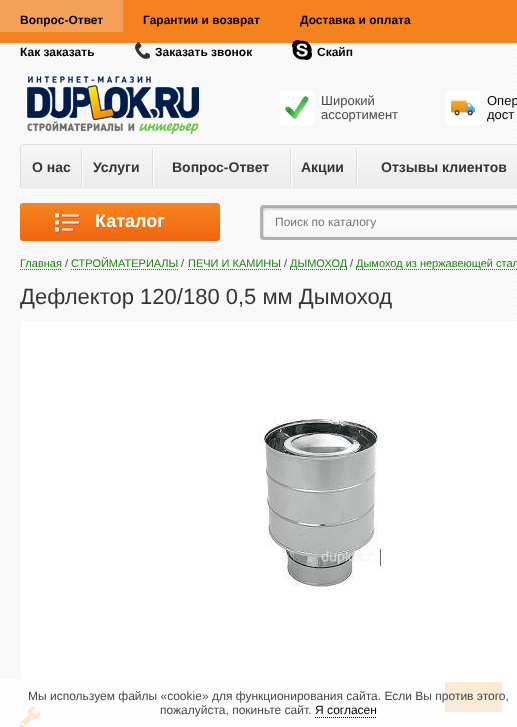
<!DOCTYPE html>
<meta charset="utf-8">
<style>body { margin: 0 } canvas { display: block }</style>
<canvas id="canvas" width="517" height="727"></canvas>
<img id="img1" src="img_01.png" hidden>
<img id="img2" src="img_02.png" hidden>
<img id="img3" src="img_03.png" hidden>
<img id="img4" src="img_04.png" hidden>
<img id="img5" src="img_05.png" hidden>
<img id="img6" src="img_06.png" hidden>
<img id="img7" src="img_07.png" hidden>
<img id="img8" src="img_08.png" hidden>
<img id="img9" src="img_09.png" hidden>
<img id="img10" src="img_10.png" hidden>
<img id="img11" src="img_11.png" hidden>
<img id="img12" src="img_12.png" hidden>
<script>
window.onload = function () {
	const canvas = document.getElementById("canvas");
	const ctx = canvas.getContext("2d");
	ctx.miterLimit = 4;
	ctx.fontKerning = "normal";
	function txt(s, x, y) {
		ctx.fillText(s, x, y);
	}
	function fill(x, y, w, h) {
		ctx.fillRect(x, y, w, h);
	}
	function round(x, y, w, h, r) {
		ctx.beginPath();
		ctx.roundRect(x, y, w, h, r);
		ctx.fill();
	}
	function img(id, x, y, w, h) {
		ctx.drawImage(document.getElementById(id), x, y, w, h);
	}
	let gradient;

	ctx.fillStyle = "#FFFFFF";
	fill(0, 0, 517, 727);
	img("img1", 0, 43, 517, 684);
	ctx.fillStyle = "#F6821F";
	fill(0, 0, 517, 43);
	ctx.fillStyle = "#F3A059";
	fill(0, 0, 123, 32);
	img("img2", 135, 42, 15, 17);
	img("img3", 292, 40, 20, 20);
	img("img4", 27, 76, 172, 58);
	ctx.fillStyle = "#FFFFFF";
	fill(280, 91, 34, 34);
	img("img5", 285, 96, 24, 23);
	fill(446, 91, 34, 34);
	img("img6", 451, 100, 24, 16);
	img("img7", 20, 144, 497, 46);
	ctx.beginPath();
	ctx.moveTo(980.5, 145.5);
	ctx.lineTo(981.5, 147.5);
	ctx.lineTo(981.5, 186.5);
	ctx.lineTo(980, 188.5);
	ctx.lineTo(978, 189.5);
	ctx.lineTo(24, 189.5);
	ctx.lineTo(21.5, 188.5);
	ctx.strokeStyle = "#FFFFFF";
	ctx.stroke();
	ctx.beginPath();
	ctx.moveTo(21.5, 188.5);
	ctx.lineTo(20.5, 186.5);
	ctx.lineTo(20.5, 147.5);
	ctx.lineTo(22, 145.5);
	ctx.lineTo(24, 144.5);
	ctx.lineTo(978, 144.5);
	ctx.lineTo(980.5, 145.5);
	ctx.strokeStyle = "#DDDDDD";
	ctx.stroke();
	img("img8", 81, 148, 2, 39);
	img("img8", 152, 148, 2, 39);
	img("img8", 290, 148, 2, 39);
	img("img8", 356, 148, 2, 39);
	gradient = ctx.createLinearGradient(120, 203, 120, 241);
	gradient.addColorStop(0, "#F5851E");
	gradient.addColorStop(1, "#F16411");
	ctx.fillStyle = gradient;
	round(20, 203, 200, 38, 3);
	img("img9", 55, 213, 25, 20);
	img("img10", 260, 205, 257, 35);
	ctx.beginPath();
	ctx.moveTo(20, 269.5);
	ctx.lineTo(62, 269.5);
	ctx.strokeStyle = "#1D7D14";
	ctx.setLineDash([1, 1]);
	ctx.stroke();
	ctx.beginPath();
	ctx.moveTo(71, 269.5);
	ctx.lineTo(178, 269.5);
	ctx.stroke();
	ctx.beginPath();
	ctx.moveTo(188, 269.5);
	ctx.lineTo(281, 269.5);
	ctx.stroke();
	ctx.beginPath();
	ctx.moveTo(290, 269.5);
	ctx.lineTo(347, 269.5);
	ctx.stroke();
	ctx.beginPath();
	ctx.moveTo(356, 269.5);
	ctx.lineTo(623, 269.5);
	ctx.stroke();
	ctx.fillStyle = "#FFFFFF";
	fill(21, 321, 496, 361);
	img("img11", 258, 419, 126, 168);
	img("img12", 20, 707, 20, 20);
	ctx.fillStyle = "rgba(219, 132, 4, 0.8)";
	round(445, 682, 57, 30, 1);
	ctx.fillStyle = "rgba(255, 255, 255, 0.8)";
	fill(0, 679, 517, 48);
	ctx.beginPath();
	ctx.moveTo(315, 717.5);
	ctx.lineTo(377, 717.5);
	ctx.strokeStyle = "#000000";
	ctx.stroke();
	ctx.font = "bold 12px Liberation Sans";
	ctx.fillStyle = "#000000";
	txt("Вопрос-Ответ", 20, 24);
	txt("Гарантии и возврат", 143, 24);
	txt("Доставка и оплата", 300, 24);
	txt("Как заказать", 20, 56);
	txt("Заказать звонок", 155, 56);
	txt("Скайп", 317, 56);
	ctx.font = "13px Liberation Sans";
	ctx.fillStyle = "#49474E";
	txt("Широкий", 321, 105);
	txt("ассортимент", 321, 119);
	ctx.fillStyle = "#000000";
	txt("Опер", 487, 105);
	txt("дост", 487, 119);
	ctx.font = "bold 14px Liberation Sans";
	ctx.fillStyle = "#363439";
	txt("О нас", 32, 172);
	txt("Услуги", 93, 172);
	txt("Вопрос-Ответ", 172, 172);
	txt("Акции", 301, 172);
	txt("Отзывы клиентов", 381, 172);
	ctx.font = "bold 18px Liberation Sans";
	ctx.fillStyle = "#FFFFFF";
	txt("Каталог", 95, 227);
	ctx.font = "12px Liberation Sans";
	ctx.fillStyle = "#757575";
	txt("Поиск по каталогу", 275, 226);
	ctx.font = "11px Liberation Sans";
	ctx.fillStyle = "#1D7D14";
	txt("Главная", 20, 267);
	ctx.fillStyle = "#49474E";
	txt("/", 65, 267);
	ctx.fillStyle = "#1D7D14";
	txt("СТРОЙМАТЕРИАЛЫ", 71, 267);
	ctx.fillStyle = "#49474E";
	txt("/", 181, 267);
	ctx.fillStyle = "#1D7D14";
	txt("ПЕЧИ И КАМИНЫ", 188, 267);
	ctx.fillStyle = "#49474E";
	txt("/", 284, 267);
	ctx.fillStyle = "#1D7D14";
	txt("ДЫМОХОД", 290, 267);
	ctx.fillStyle = "#49474E";
	txt("/", 350, 267);
	ctx.fillStyle = "#1D7D14";
	txt("Дымоход из нержавеющей стал", 356, 267);
	ctx.font = "22px Liberation Sans";
	ctx.fillStyle = "#363439";
	txt("Дефлектор 120/180 0,5 мм Дымоход", 20, 304);
	ctx.font = "12px Liberation Sans";
	ctx.fillStyle = "#49474E";
	txt("Мы используем файлы «cookie» для функционирования сайта. Если Вы против этого,", 28, 700);
	txt("пожалуйста, покиньте сайт.", 160, 714);
	ctx.fillStyle = "#000000";
	txt("Я согласен", 315, 714);
};
</script>
